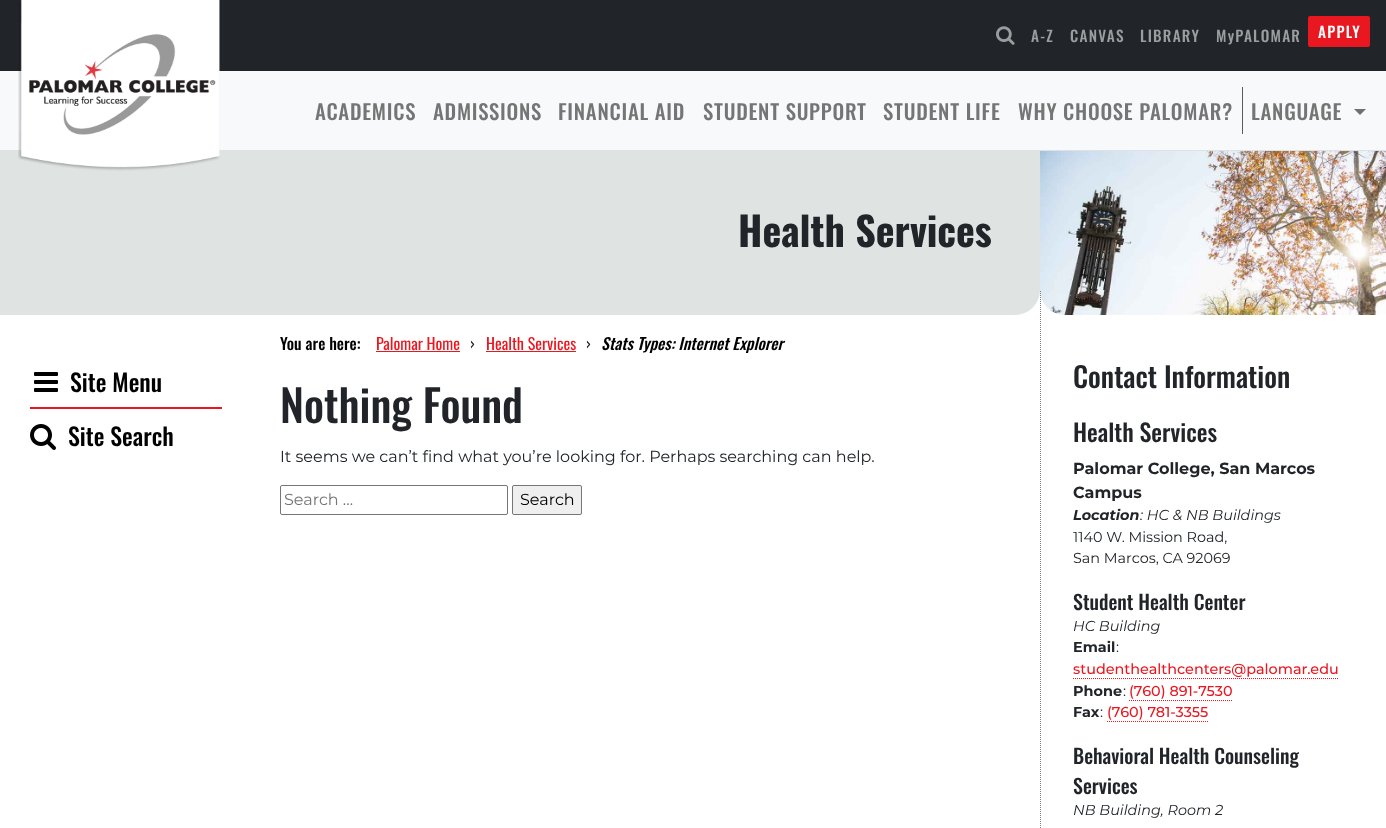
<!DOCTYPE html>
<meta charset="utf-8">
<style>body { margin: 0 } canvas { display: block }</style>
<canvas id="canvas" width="1386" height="828"></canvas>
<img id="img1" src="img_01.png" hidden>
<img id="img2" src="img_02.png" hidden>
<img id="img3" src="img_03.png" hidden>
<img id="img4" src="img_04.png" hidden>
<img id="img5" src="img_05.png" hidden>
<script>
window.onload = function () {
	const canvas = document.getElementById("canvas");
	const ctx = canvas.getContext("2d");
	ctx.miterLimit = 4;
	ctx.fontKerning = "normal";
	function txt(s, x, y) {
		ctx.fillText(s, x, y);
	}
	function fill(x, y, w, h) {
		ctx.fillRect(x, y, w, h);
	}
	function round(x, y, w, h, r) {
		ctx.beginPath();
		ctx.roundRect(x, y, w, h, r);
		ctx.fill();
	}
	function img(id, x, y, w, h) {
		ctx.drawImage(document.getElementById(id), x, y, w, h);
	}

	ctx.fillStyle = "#FFFFFF";
	fill(0, 0, 1386, 828);
	ctx.fillStyle = "#212529";
	fill(0, 0, 1386, 71);
	ctx.fillStyle = "#F8F9FA";
	fill(0, 71, 1386, 79);
	ctx.fillStyle = "#DEE2E6";
	fill(0, 150, 1386, 1);
	ctx.fillStyle = "#DFE3E2";
	ctx.beginPath();
	ctx.roundRect(0, 151, 1040, 164, [0, 0, 25, 0]);
	ctx.fill();
	img("img1", 18, 0, 202, 171);
	img("img2", 996, 26, 19, 19);
	ctx.fillStyle = "#E9171F";
	round(1308, 16, 62, 31, 2);
	ctx.fillStyle = "#595D5C";
	fill(1242, 87, 1, 47);
	ctx.fillStyle = "#707071";
	ctx.beginPath();
	ctx.moveTo(1354, 109);
	ctx.lineTo(1366, 109);
	ctx.lineTo(1360, 115);
	ctx.closePath();
	ctx.fill();
	img("img3", 1040, 151, 346, 164);
	ctx.fillStyle = "#E9171F";
	fill(30, 407, 192, 2);
	img("img4", 34, 372, 24, 20);
	img("img5", 30, 424, 26, 26);
	fill(376, 351, 84, 1);
	fill(486, 351, 90, 1);
	ctx.beginPath();
	ctx.roundRect(280.5, 485.5, 227, 29, 1.5);
	ctx.strokeStyle = "#767676";
	ctx.stroke();
	ctx.fillStyle = "#EFEFEF";
	ctx.beginPath();
	ctx.roundRect(512.5, 485.5, 69, 29, 1.5);
	ctx.fill();
	ctx.stroke();
	ctx.beginPath();
	ctx.moveTo(1040.5, 291);
	ctx.lineTo(1040.5, 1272);
	ctx.strokeStyle = "#808080";
	ctx.setLineDash([1, 1]);
	ctx.stroke();
	ctx.beginPath();
	ctx.moveTo(1073, 678.5);
	ctx.lineTo(1339, 678.5);
	ctx.strokeStyle = "#E9171F";
	ctx.stroke();
	ctx.beginPath();
	ctx.moveTo(1129, 700.5);
	ctx.lineTo(1233, 700.5);
	ctx.stroke();
	ctx.beginPath();
	ctx.moveTo(1107, 721.5);
	ctx.lineTo(1208, 721.5);
	ctx.stroke();
	ctx.letterSpacing = "1.25px";
	ctx.font = "500 15.25px Oswald";
	ctx.fillStyle = "#9B9D9F";
	txt("A-Z", 1031, 42);
	txt("CANVAS", 1070, 42);
	txt("LIBRARY", 1140, 42);
	txt("MyPALOMAR", 1216, 42);
	ctx.fillStyle = "#FFFFFF";
	txt("APPLY", 1318, 38);
	ctx.letterSpacing = "0.75px";
	ctx.font = "500 20.75px Oswald";
	ctx.fillStyle = "#757575";
	txt("ACADEMICS", 315, 120);
	txt("ADMISSIONS", 433, 120);
	txt("FINANCIAL AID", 558, 120);
	txt("STUDENT SUPPORT", 703, 120);
	txt("STUDENT LIFE", 883, 120);
	txt("WHY CHOOSE PALOMAR?", 1018, 120);
	txt("LANGUAGE", 1251, 120);
	ctx.letterSpacing = "0px";
	ctx.font = "bold 40px Oswald";
	ctx.fillStyle = "#212529";
	txt("Health Services", 738, 247);
	ctx.font = "500 24px Oswald";
	ctx.fillStyle = "#000000";
	txt("Site Menu", 70, 392);
	txt("Site Search", 68, 446);
	ctx.font = "500 16px Oswald";
	txt("You are here:", 280, 350);
	ctx.font = "16px Oswald";
	ctx.fillStyle = "#E9171F";
	txt("Palomar Home", 376, 350);
	ctx.fillStyle = "#212529";
	txt("›", 470, 350);
	ctx.fillStyle = "#E9171F";
	txt("Health Services", 486, 350);
	ctx.fillStyle = "#212529";
	txt("›", 586, 350);
	ctx.font = "italic 500 16px Oswald";
	ctx.fillStyle = "#000000";
	txt("Stats Types: Internet Explorer", 601, 350);
	ctx.font = "500 44px Oswald";
	ctx.fillStyle = "#212529";
	txt("Nothing Found", 280, 423);
	ctx.font = "16px Montserrat";
	txt("It seems we can’t find what you’re looking for. Perhaps searching can help.", 280, 462);
	ctx.fillStyle = "#757575";
	txt("Search …", 284, 505);
	ctx.fillStyle = "#000000";
	txt("Search", 520, 505);
	ctx.font = "500 28px Oswald";
	ctx.fillStyle = "#212529";
	txt("Contact Information", 1073, 388);
	ctx.font = "500 24px Oswald";
	txt("Health Services", 1073, 442);
	ctx.font = "bold 16px Montserrat";
	txt("Palomar College, San Marcos", 1073, 474);
	txt("Campus", 1073, 498);
	ctx.font = "italic bold 14.4px Montserrat";
	txt("Location", 1073, 520);
	ctx.font = "italic 14.4px Montserrat";
	txt(": HC & NB Buildings", 1140, 520);
	ctx.font = "14.4px Montserrat";
	txt("1140 W. Mission Road,", 1073, 542);
	txt("San Marcos, CA 92069", 1073, 563);
	ctx.font = "500 20px Oswald";
	txt("Student Health Center", 1073, 610);
	ctx.font = "italic 14.4px Montserrat";
	txt("HC Building", 1073, 631);
	ctx.font = "bold 14.4px Montserrat";
	txt("Email", 1073, 652);
	ctx.font = "14.4px Montserrat";
	txt(":", 1116, 652);
	ctx.font = "500 14.4px Montserrat";
	ctx.fillStyle = "#E9171F";
	txt("studenthealthcenters@palomar.edu", 1073, 674);
	ctx.font = "bold 14.4px Montserrat";
	ctx.fillStyle = "#212529";
	txt("Phone", 1073, 696);
	ctx.font = "14.4px Montserrat";
	txt(":", 1123, 696);
	ctx.font = "500 14.4px Montserrat";
	ctx.fillStyle = "#E9171F";
	txt("(760) 891-7530", 1129, 696);
	ctx.font = "bold 14.4px Montserrat";
	ctx.fillStyle = "#212529";
	txt("Fax", 1073, 717);
	ctx.font = "14.4px Montserrat";
	txt(":", 1100, 717);
	ctx.font = "500 14.4px Montserrat";
	ctx.fillStyle = "#E9171F";
	txt("(760) 781-3355", 1107, 717);
	ctx.font = "500 20px Oswald";
	ctx.fillStyle = "#212529";
	txt("Behavioral Health Counseling", 1073, 764);
	txt("Services", 1073, 794);
	ctx.font = "italic 14.4px Montserrat";
	txt("NB Building, Room 2", 1073, 815);
};
</script>
